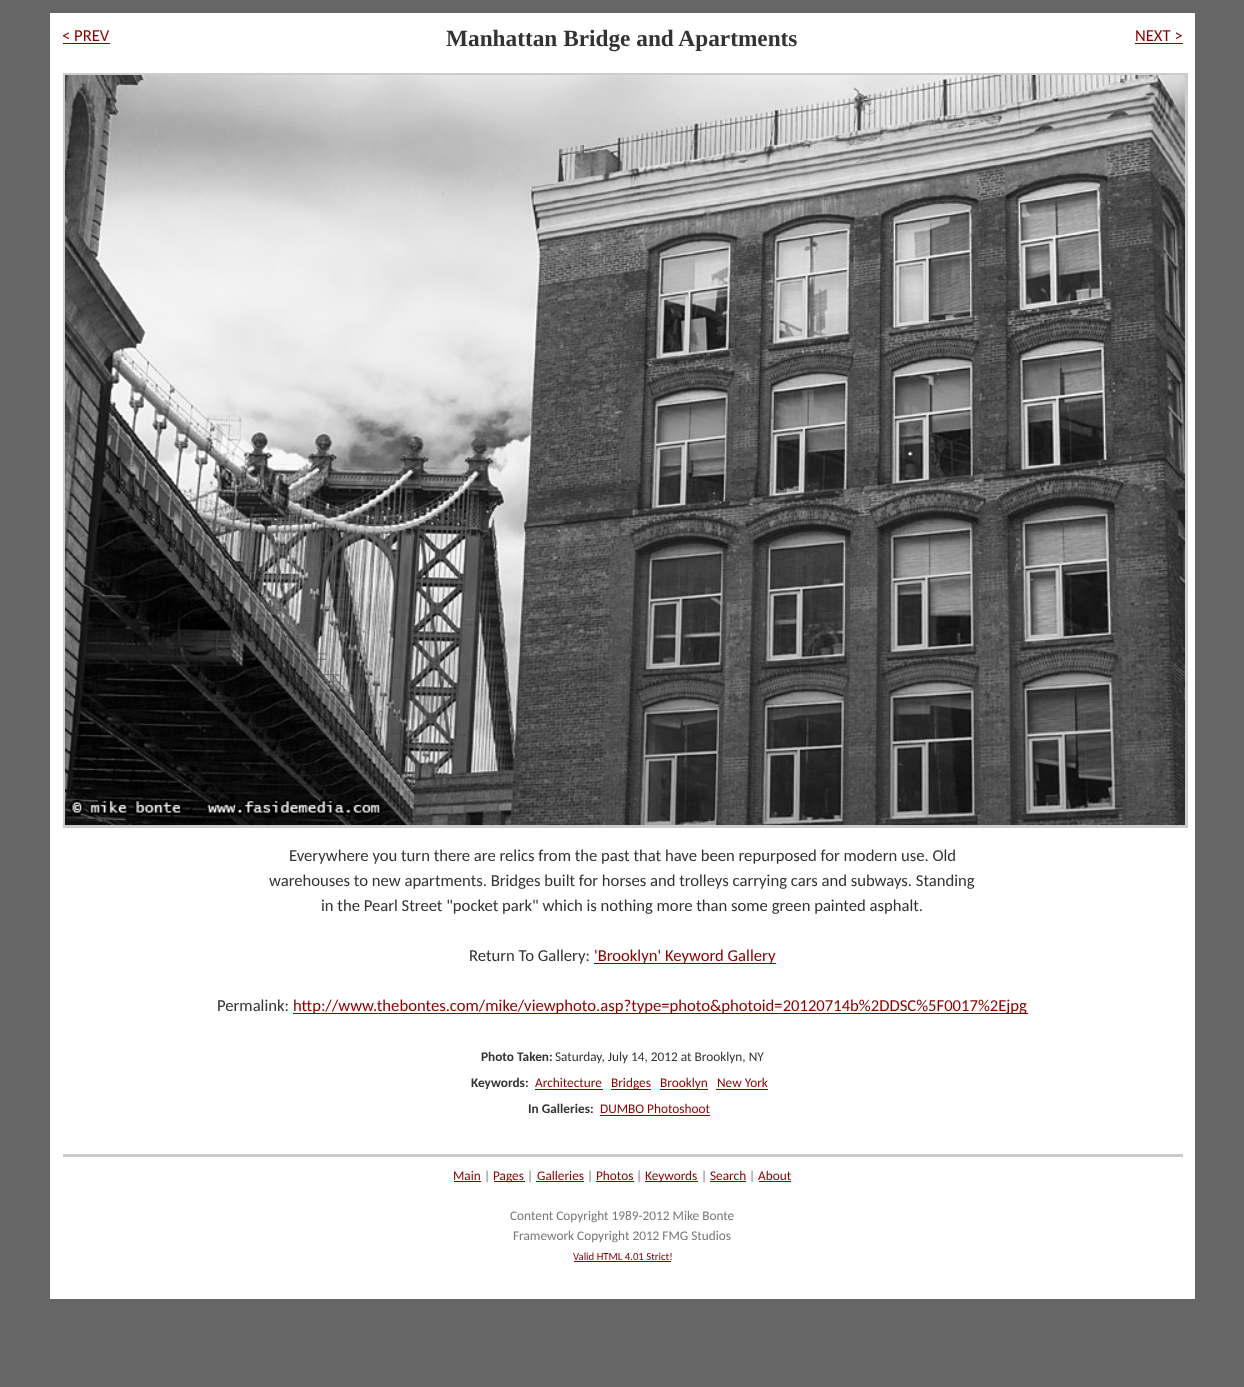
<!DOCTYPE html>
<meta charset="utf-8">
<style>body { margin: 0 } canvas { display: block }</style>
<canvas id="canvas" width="1244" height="1387"></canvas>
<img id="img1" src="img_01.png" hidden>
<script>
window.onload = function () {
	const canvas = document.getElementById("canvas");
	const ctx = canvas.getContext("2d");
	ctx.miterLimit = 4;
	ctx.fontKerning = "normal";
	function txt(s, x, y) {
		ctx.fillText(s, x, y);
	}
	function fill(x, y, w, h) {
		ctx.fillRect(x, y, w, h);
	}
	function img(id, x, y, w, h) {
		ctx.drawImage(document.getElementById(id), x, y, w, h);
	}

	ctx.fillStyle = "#666666";
	fill(0, 0, 1244, 1387);
	ctx.fillStyle = "#FFFFFF";
	fill(50, 13, 1145, 1286);
	ctx.fillStyle = "#880000";
	fill(63, 43, 47, 1);
	fill(1135, 43, 48, 1);
	ctx.strokeStyle = "#CCCCCC";
	ctx.lineWidth = 3;
	ctx.strokeRect(64.5, 74.5, 1122, 752);
	img("img1", 65, 75, 1120, 750);
	fill(594, 963, 182, 1);
	fill(293, 1013, 735, 1);
	fill(535, 1089, 68, 1);
	fill(611, 1089, 40, 1);
	fill(660, 1089, 48, 1);
	fill(716, 1089, 52, 1);
	fill(600, 1115, 110, 1);
	ctx.fillStyle = "#CCCCCC";
	fill(63, 1154, 1120, 3);
	ctx.fillStyle = "#880000";
	fill(454, 1181, 27, 1);
	fill(494, 1181, 31, 1);
	fill(536, 1181, 48, 1);
	fill(596, 1181, 38, 1);
	fill(645, 1181, 53, 1);
	fill(710, 1181, 36, 1);
	fill(759, 1181, 32, 1);
	fill(574, 1261, 97, 1);
	ctx.font = "16.65px Carlito";
	txt("< PREV", 62, 41);
	ctx.font = "bold 23.3px Liberation Serif";
	ctx.fillStyle = "#333333";
	txt("Manhattan Bridge and Apartments", 446, 46);
	ctx.font = "16.65px Carlito";
	ctx.fillStyle = "#880000";
	txt("NEXT >", 1135, 41);
	ctx.fillStyle = "#333333";
	txt("Everywhere you turn there are relics from the past that have been repurposed for modern use. Old", 289, 861);
	txt("warehouses to new apartments. Bridges built for horses and trolleys carrying cars and subways. Standing", 269, 886);
	txt("in the Pearl Street \"pocket park\" which is nothing more than some green painted asphalt.", 321, 911);
	txt("Return To Gallery:", 469, 961);
	ctx.fillStyle = "#880000";
	txt("'Brooklyn' Keyword Gallery", 594, 961);
	ctx.fillStyle = "#333333";
	txt("Permalink:", 217, 1011);
	ctx.fillStyle = "#880000";
	txt("http://www.thebontes.com/mike/viewphoto.asp?type=photo&photoid=20120714b%2DDSC%5F0017%2Ejpg", 293, 1011);
	ctx.font = "bold 13.3px Carlito";
	ctx.fillStyle = "#333333";
	txt("Photo Taken:", 481, 1061);
	ctx.font = "13.3px Carlito";
	txt("Saturday, July 14, 2012 at Brooklyn, NY", 555, 1061);
	ctx.font = "bold 13.3px Carlito";
	txt("Keywords:", 471, 1087);
	ctx.font = "13.3px Carlito";
	ctx.fillStyle = "#880000";
	txt("Architecture", 535, 1087);
	txt("Bridges", 611, 1087);
	txt("Brooklyn", 660, 1087);
	txt("New York", 717, 1087);
	ctx.font = "bold 13.3px Carlito";
	ctx.fillStyle = "#333333";
	txt("In Galleries:", 528, 1113);
	ctx.font = "13.3px Carlito";
	ctx.fillStyle = "#880000";
	txt("DUMBO Photoshoot", 600, 1113);
	txt("Main", 453, 1180);
	ctx.fillStyle = "#777777";
	txt("|", 484, 1180);
	ctx.fillStyle = "#880000";
	txt("Pages", 493, 1180);
	ctx.fillStyle = "#777777";
	txt("|", 527, 1180);
	ctx.fillStyle = "#880000";
	txt("Galleries", 537, 1180);
	ctx.fillStyle = "#777777";
	txt("|", 587, 1180);
	ctx.fillStyle = "#880000";
	txt("Photos", 596, 1180);
	ctx.fillStyle = "#777777";
	txt("|", 636, 1180);
	ctx.fillStyle = "#880000";
	txt("Keywords", 645, 1180);
	ctx.fillStyle = "#777777";
	txt("|", 701, 1180);
	ctx.fillStyle = "#880000";
	txt("Search", 710, 1180);
	ctx.fillStyle = "#777777";
	txt("|", 749, 1180);
	ctx.fillStyle = "#880000";
	txt("About", 758, 1180);
	ctx.fillStyle = "#777777";
	txt("Content Copyright 1989-2012 Mike Bonte", 510, 1220);
	txt("Framework Copyright 2012 FMG Studios", 513, 1240);
	ctx.font = "10.75px Carlito";
	ctx.fillStyle = "#880000";
	txt("Valid HTML 4.01 Strict!", 573, 1260);
};
</script>
